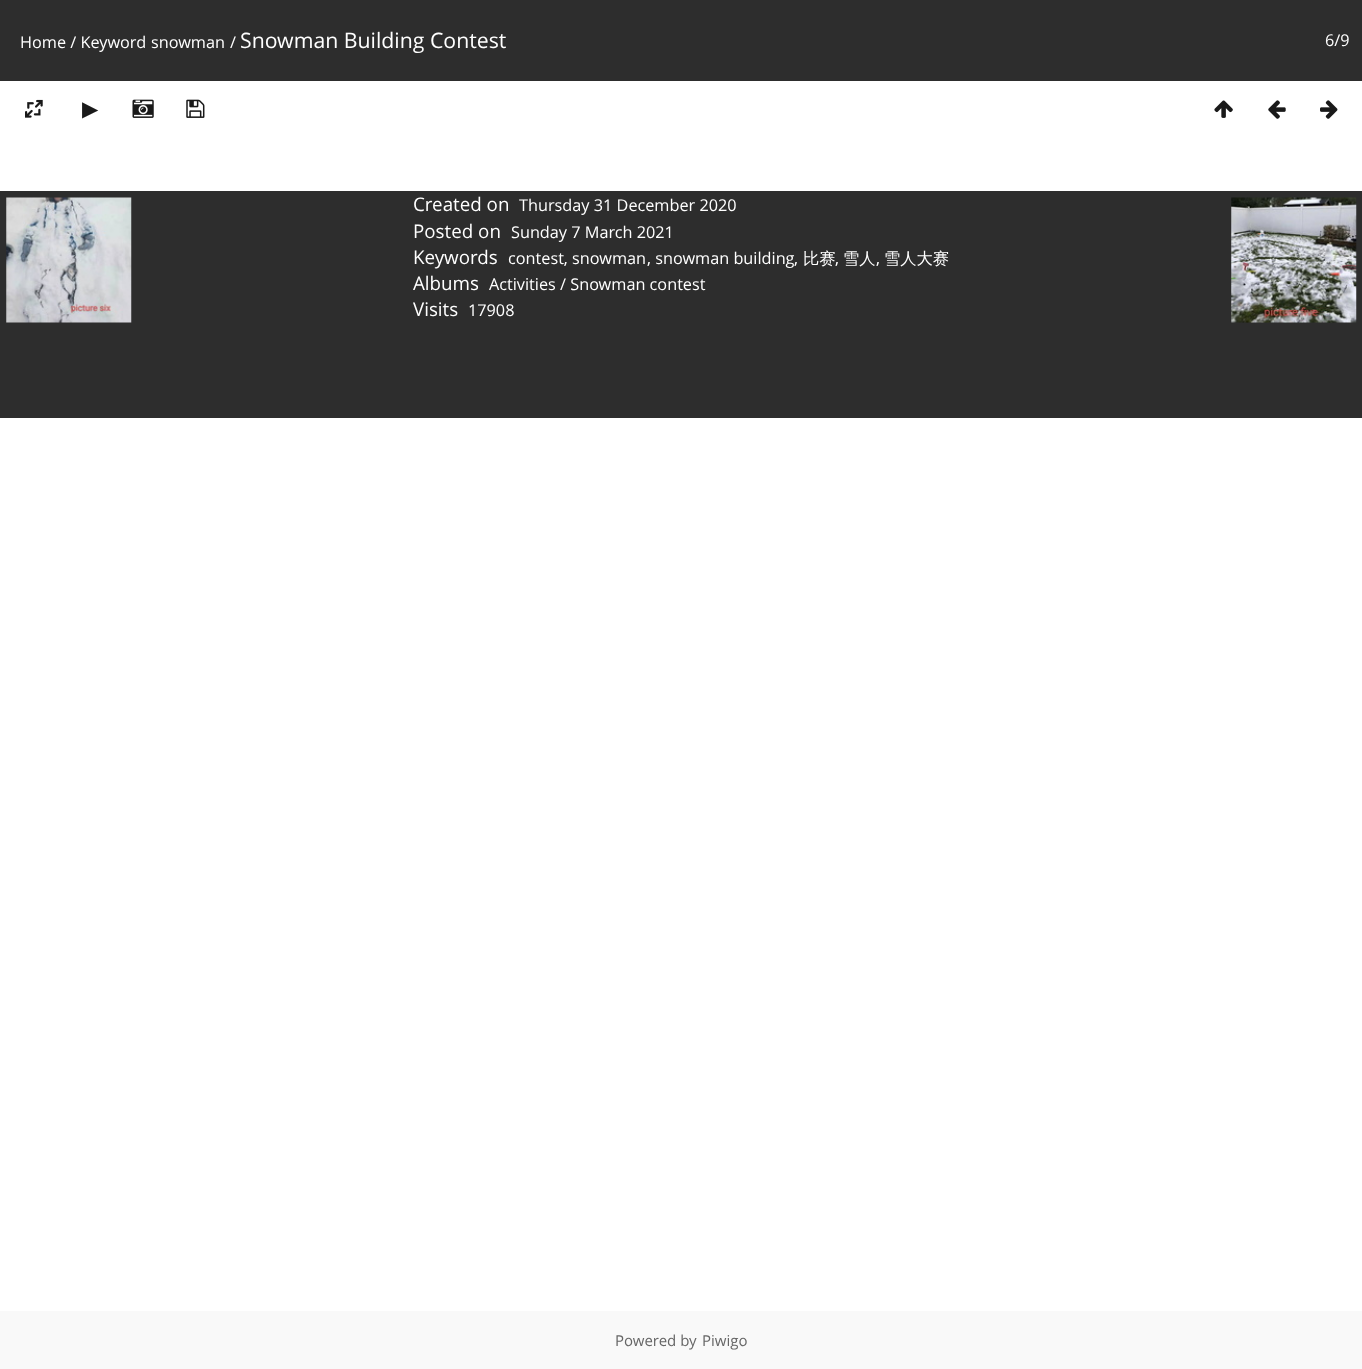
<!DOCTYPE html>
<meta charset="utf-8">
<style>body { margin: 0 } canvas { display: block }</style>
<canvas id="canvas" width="1362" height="1369"></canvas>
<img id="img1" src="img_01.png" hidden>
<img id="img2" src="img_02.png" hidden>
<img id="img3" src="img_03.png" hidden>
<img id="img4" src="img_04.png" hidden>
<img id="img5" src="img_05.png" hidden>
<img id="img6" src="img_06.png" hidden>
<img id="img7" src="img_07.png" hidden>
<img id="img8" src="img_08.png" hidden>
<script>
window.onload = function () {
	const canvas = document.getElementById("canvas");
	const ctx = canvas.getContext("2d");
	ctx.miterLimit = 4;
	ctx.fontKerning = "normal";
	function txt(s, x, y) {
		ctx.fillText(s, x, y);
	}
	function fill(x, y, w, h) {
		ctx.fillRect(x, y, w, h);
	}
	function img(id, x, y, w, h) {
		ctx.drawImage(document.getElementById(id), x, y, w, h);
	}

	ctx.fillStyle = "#FFFFFF";
	fill(0, 0, 1362, 1369);
	ctx.fillStyle = "#2D2D2D";
	fill(0, 0, 1362, 81);
	img("img1", 25, 99, 18, 19);
	img("img2", 132, 99, 22, 19);
	img("img3", 186, 99, 19, 19);
	img("img4", 1214, 100, 19, 18);
	img("img5", 1268, 100, 18, 19);
	img("img6", 1320, 100, 18, 19);
	fill(0, 191, 1362, 227);
	img("img7", 6, 197, 126, 126);
	img("img8", 1231, 197, 126, 126);
	ctx.fillStyle = "#F9F9F9";
	fill(0, 1311, 1362, 58);
	ctx.font = "16.25px Open Sans";
	ctx.fillStyle = "#FFFFFF";
	txt("Home / Keyword", 20, 48);
	txt("snowman", 151, 48);
	txt("/", 230, 48);
	ctx.font = "21.25px Open Sans";
	txt("Snowman Building Contest", 240, 48);
	ctx.font = "16.25px Open Sans";
	txt("6/9", 1325, 46);
	ctx.font = "21.25px DejaVu Sans";
	ctx.fillStyle = "#1A1A1A";
	txt("▶", 82, 116);
	ctx.font = "18.75px Open Sans";
	ctx.fillStyle = "#FFFFFF";
	txt("Created on", 413, 211);
	ctx.font = "16.25px Open Sans";
	txt("Thursday 31 December 2020", 519, 211);
	ctx.font = "18.75px Open Sans";
	txt("Posted on", 413, 238);
	ctx.font = "16.25px Open Sans";
	txt("Sunday 7 March 2021", 511, 238);
	ctx.font = "18.75px Open Sans";
	txt("Keywords", 413, 264);
	ctx.font = "16.25px Open Sans";
	txt("contest, snowman", 508, 264);
	txt(", snowman building", 647, 264);
	txt(",", 794, 264);
	ctx.font = "500 16.25px WenQuanYi Zen Hei";
	txt("比赛", 803, 264);
	ctx.font = "16.25px Open Sans";
	txt(",", 835, 264);
	ctx.font = "500 16.25px WenQuanYi Zen Hei";
	txt("雪人", 843, 264);
	ctx.font = "16.25px Open Sans";
	txt(",", 876, 264);
	ctx.font = "500 16.25px WenQuanYi Zen Hei";
	txt("雪人大赛", 884, 264);
	ctx.font = "18.75px Open Sans";
	txt("Albums", 413, 290);
	ctx.font = "16.25px Open Sans";
	txt("Activities / Snowman contest", 489, 290);
	ctx.font = "18.75px Open Sans";
	txt("Visits", 413, 316);
	ctx.font = "16.25px Open Sans";
	txt("17908", 468, 316);
	ctx.font = "15px Open Sans";
	ctx.fillStyle = "#666666";
	txt("Powered by", 615, 1346);
	txt("Piwigo", 702, 1346);
};
</script>
